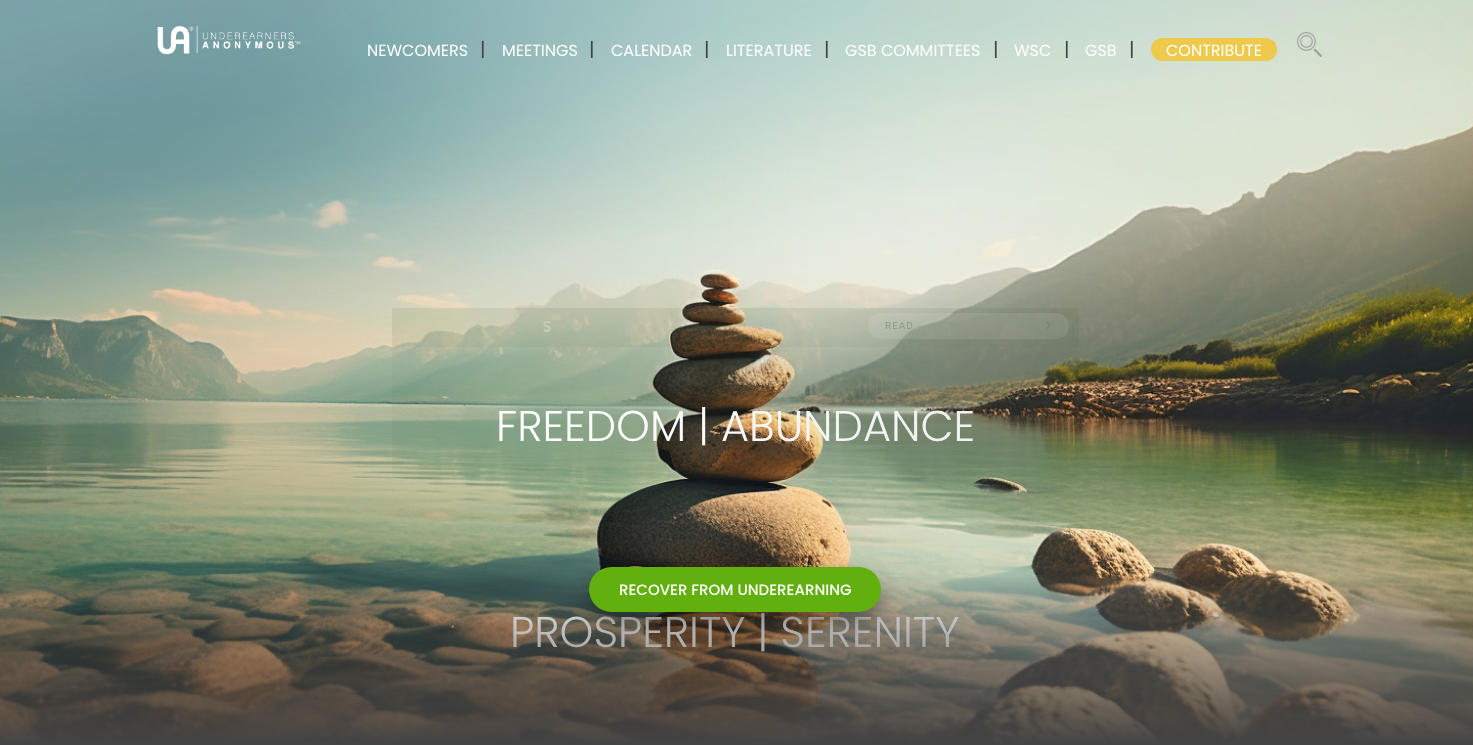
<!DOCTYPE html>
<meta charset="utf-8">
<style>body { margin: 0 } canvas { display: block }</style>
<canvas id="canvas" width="1473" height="745"></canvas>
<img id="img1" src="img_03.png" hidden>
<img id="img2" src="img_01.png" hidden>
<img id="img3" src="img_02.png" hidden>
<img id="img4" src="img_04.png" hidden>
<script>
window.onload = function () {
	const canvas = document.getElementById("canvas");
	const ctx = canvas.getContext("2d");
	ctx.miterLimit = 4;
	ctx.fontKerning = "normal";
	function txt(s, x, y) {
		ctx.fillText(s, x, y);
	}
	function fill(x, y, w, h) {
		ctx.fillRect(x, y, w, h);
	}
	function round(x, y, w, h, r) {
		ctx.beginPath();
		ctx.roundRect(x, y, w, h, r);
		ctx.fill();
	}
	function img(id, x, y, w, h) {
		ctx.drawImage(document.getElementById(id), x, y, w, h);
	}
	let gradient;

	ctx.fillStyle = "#FFFFFF";
	fill(0, 0, 1473, 745);
	img("img1", 0, 0, 1473, 744);
	img("img2", 157, 25, 144, 30);
	ctx.fillStyle = "#EFC94C";
	round(1151, 38, 126, 23, 11.5);
	img("img3", 1297, 32, 25, 25);
	ctx.fillStyle = "rgba(71, 96, 60, 0.05)";
	fill(392, 308, 687, 170);
	fill(392, 308, 687, 39);
	ctx.fillStyle = "rgba(255, 255, 255, 0.09)";
	round(868, 313, 201, 26, 13);
	img("img4", 1046, 321, 5, 8);
	ctx.font = "16px Poppins";
	ctx.fillStyle = "#FFFFFF";
	txt("NEWCOMERS", 367, 56);
	ctx.font = "19px Poppins";
	ctx.fillStyle = "#444444";
	txt("|", 480, 56);
	ctx.font = "16px Poppins";
	ctx.fillStyle = "#FFFFFF";
	txt("MEETINGS", 502, 56);
	ctx.font = "19px Poppins";
	ctx.fillStyle = "#444444";
	txt("|", 589, 56);
	ctx.font = "16px Poppins";
	ctx.fillStyle = "#FFFFFF";
	txt("CALENDAR", 611, 56);
	ctx.font = "19px Poppins";
	ctx.fillStyle = "#444444";
	txt("|", 704, 56);
	ctx.font = "16px Poppins";
	ctx.fillStyle = "#FFFFFF";
	txt("LITERATURE", 726, 56);
	ctx.font = "19px Poppins";
	ctx.fillStyle = "#444444";
	txt("|", 824, 56);
	ctx.font = "16px Poppins";
	ctx.fillStyle = "#FFFFFF";
	txt("GSB COMMITTEES", 845, 56);
	ctx.font = "19px Poppins";
	ctx.fillStyle = "#444444";
	txt("|", 993, 56);
	ctx.font = "16px Poppins";
	ctx.fillStyle = "#FFFFFF";
	txt("WSC", 1014, 56);
	ctx.font = "19px Poppins";
	ctx.fillStyle = "#444444";
	txt("|", 1064, 56);
	ctx.font = "16px Poppins";
	ctx.fillStyle = "#FFFFFF";
	txt("GSB", 1085, 56);
	ctx.font = "19px Poppins";
	ctx.fillStyle = "#444444";
	txt("|", 1129, 56);
	ctx.font = "16px Poppins";
	ctx.fillStyle = "#FFFFFF";
	txt("CONTRIBUTE", 1166, 56);
	ctx.letterSpacing = "1px";
	ctx.font = "900 15px Lato";
	ctx.fillStyle = "#C8CAB2";
	txt("S", 543, 332);
	ctx.font = "10px Roboto";
	ctx.fillStyle = "#8F9687";
	txt("READ", 885, 329);
	ctx.letterSpacing = "0px";
	ctx.font = "300 43px Poppins";
	gradient = ctx.createLinearGradient(487, 521, 984, 521);
	gradient.addColorStop(0, "#FFFFFF");
	gradient.addColorStop(1, "#F1F1F1");
	ctx.fillStyle = gradient;
	txt("FREEDOM | ABUNDANCE", 496, 441);
	txt("PROSPERITY | SERENITY", 510, 647);
	gradient = ctx.createLinearGradient(737, 573, 737, 745);
	gradient.addColorStop(0, "rgba(68, 68, 68, 0)");
	gradient.addColorStop(1, "#444444");
	ctx.fillStyle = gradient;
	fill(0, 577, 1473, 168);
	ctx.fillStyle = "rgba(0, 0, 0, 0.35)";
	ctx.filter = "blur(10px)";
	ctx.beginPath();
	ctx.roundRect(589, 577, 292, 45, 22.5);
	ctx.fill();
	ctx.filter = "none";
	ctx.fillStyle = "#62B00E";
	round(589, 567, 292, 45, 22.5);
	ctx.font = "500 15px Poppins";
	ctx.fillStyle = "#FFFFFF";
	txt("RECOVER FROM UNDEREARNING", 619, 595);
};
</script>
